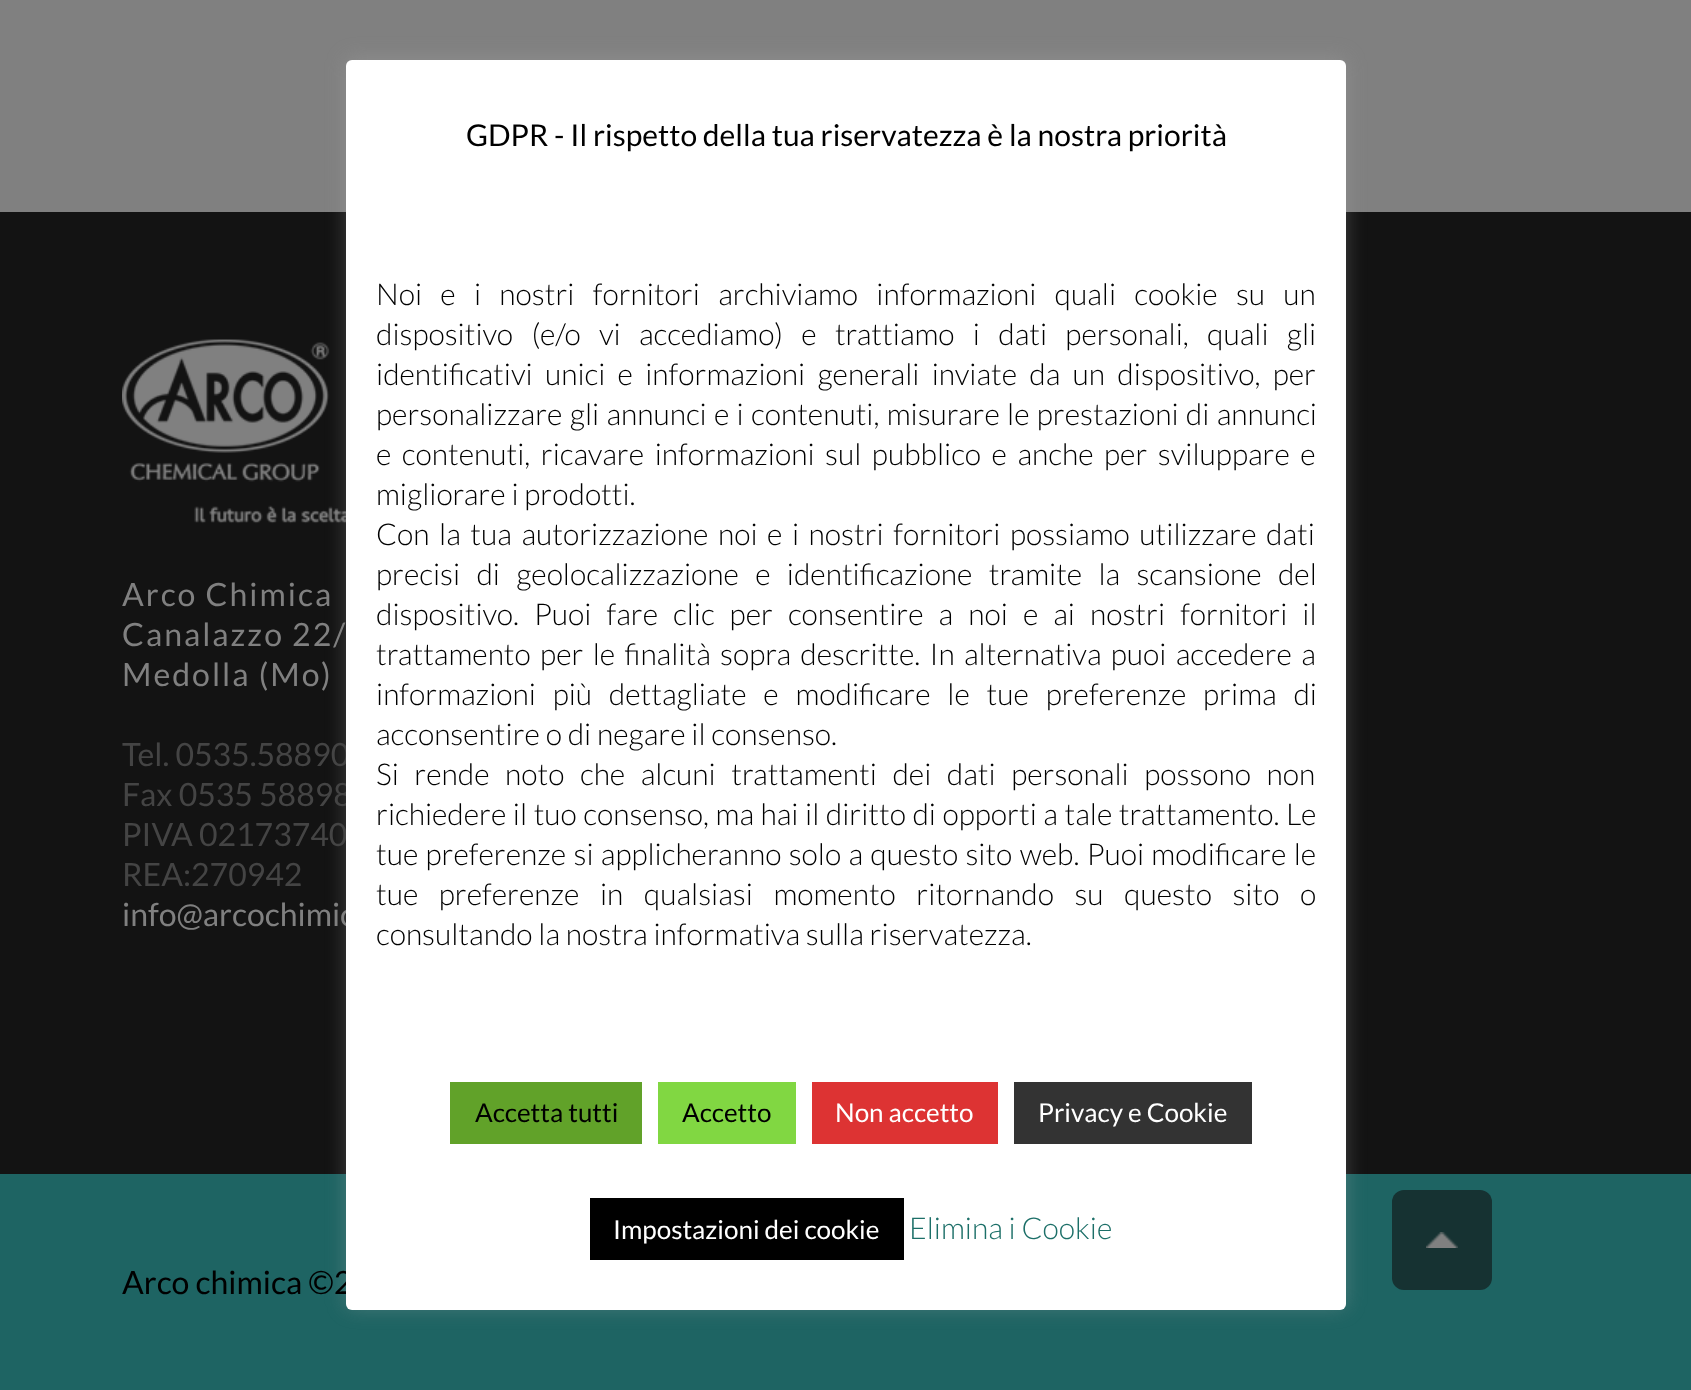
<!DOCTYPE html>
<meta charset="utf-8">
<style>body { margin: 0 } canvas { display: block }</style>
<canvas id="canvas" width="1691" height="1390"></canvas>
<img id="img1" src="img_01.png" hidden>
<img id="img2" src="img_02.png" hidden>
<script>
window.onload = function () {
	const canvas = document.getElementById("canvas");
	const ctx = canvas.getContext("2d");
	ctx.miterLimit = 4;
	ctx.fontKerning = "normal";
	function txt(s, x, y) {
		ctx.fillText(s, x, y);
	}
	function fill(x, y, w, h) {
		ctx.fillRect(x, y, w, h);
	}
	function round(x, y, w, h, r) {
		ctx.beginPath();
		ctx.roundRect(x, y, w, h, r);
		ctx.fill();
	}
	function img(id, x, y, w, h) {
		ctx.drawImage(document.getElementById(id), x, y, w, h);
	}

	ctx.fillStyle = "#808080";
	fill(0, 0, 1691, 1390);
	ctx.fillStyle = "#1E6463";
	fill(0, 1174, 1691, 216);
	ctx.fillStyle = "#131313";
	fill(0, 212, 1691, 962);
	img("img1", 122, 339, 224, 185);
	ctx.fillStyle = "#163232";
	round(1392, 1190, 100, 100, 12);
	img("img2", 1426, 1232, 32, 16);
	ctx.fillStyle = "rgba(172, 171, 171, 0.3)";
	ctx.filter = "blur(10px)";
	ctx.beginPath();
	ctx.roundRect(346, 58, 1000, 1250, 6);
	ctx.fill();
	ctx.filter = "none";
	ctx.letterSpacing = "2px";
	ctx.font = "32px Lato";
	ctx.fillStyle = "#808080";
	txt("Arco Chimica", 122, 606);
	txt("Canalazzo 22/", 122, 646);
	txt("Medolla (Mo)", 122, 686);
	ctx.letterSpacing = "0px";
	ctx.fillStyle = "#444444";
	txt("Tel. 0535.58890", 122, 766);
	txt("Fax 0535 58898", 122, 806);
	txt("PIVA 02173740", 122, 846);
	txt("REA:270942", 122, 886);
	ctx.fillStyle = "#808080";
	txt("info@arcochimic", 122, 926);
	ctx.fillStyle = "#000000";
	txt("Arco chimica ©2", 122, 1294);
	ctx.fillStyle = "#FFFFFF";
	round(346, 60, 1000, 1250, 6);
	ctx.font = "30px Lato";
	ctx.fillStyle = "#000000";
	txt("GDPR - Il rispetto della tua riservatezza è la nostra priorità", 466, 146);
	ctx.wordSpacing = "12.5px";
	ctx.font = "300 30px Lato";
	txt("Noi e i nostri fornitori archiviamo informazioni quali cookie su un", 376, 305);
	txt("dispositivo (e/o vi accediamo) e trattiamo i dati personali, quali gli", 376, 345);
	ctx.wordSpacing = "6.5px";
	txt("identificativi unici e informazioni generali inviate da un dispositivo, per", 376, 385);
	ctx.wordSpacing = "1.5px";
	txt("personalizzare gli annunci e i contenuti, misurare le prestazioni di annunci", 376, 425);
	ctx.wordSpacing = "4.75px";
	txt("e contenuti, ricavare informazioni sul pubblico e anche per sviluppare e", 376, 465);
	ctx.wordSpacing = "0px";
	txt("migliorare i prodotti.", 376, 505);
	ctx.wordSpacing = "3.75px";
	txt("Con la tua autorizzazione noi e i nostri fornitori possiamo utilizzare dati", 376, 545);
	ctx.wordSpacing = "10.5px";
	txt("precisi di geolocalizzazione e identificazione tramite la scansione del", 376, 585);
	ctx.wordSpacing = "9.25px";
	txt("dispositivo. Puoi fare clic per consentire a noi e ai nostri fornitori il", 376, 625);
	ctx.wordSpacing = "3.5px";
	txt("trattamento per le finalità sopra descritte. In alternativa puoi accedere a", 376, 665);
	ctx.wordSpacing = "11px";
	txt("informazioni più dettagliate e modificare le tue preferenze prima di", 376, 705);
	ctx.wordSpacing = "0px";
	txt("acconsentire o di negare il consenso.", 376, 745);
	ctx.wordSpacing = "9.75px";
	txt("Si rende noto che alcuni trattamenti dei dati personali possono non", 376, 785);
	ctx.wordSpacing = "0.75px";
	txt("richiedere il tuo consenso, ma hai il diritto di opporti a tale trattamento. Le", 376, 825);
	ctx.wordSpacing = "1.5px";
	txt("tue preferenze si applicheranno solo a questo sito web. Puoi modificare le", 376, 865);
	ctx.wordSpacing = "14.75px";
	txt("tue preferenze in qualsiasi momento ritornando su questo sito o", 376, 905);
	ctx.wordSpacing = "0px";
	txt("consultando la nostra informativa sulla riservatezza.", 376, 945);
	ctx.fillStyle = "#61A229";
	fill(450, 1082, 192, 62);
	ctx.font = "26px Lato";
	ctx.fillStyle = "#000000";
	txt("Accetta tutti", 475, 1122);
	ctx.fillStyle = "#81D742";
	fill(658, 1082, 138, 62);
	ctx.fillStyle = "#000000";
	txt("Accetto", 682, 1122);
	ctx.fillStyle = "#DD3333";
	fill(812, 1082, 186, 62);
	ctx.fillStyle = "#FFFFFF";
	txt("Non accetto", 835, 1122);
	ctx.fillStyle = "#333333";
	fill(1014, 1082, 238, 62);
	ctx.fillStyle = "#FFFFFF";
	txt("Privacy e Cookie", 1038, 1122);
	ctx.fillStyle = "#000000";
	fill(590, 1198, 314, 62);
	ctx.fillStyle = "#FFFFFF";
	txt("Impostazioni dei cookie", 613, 1239);
	ctx.font = "300 30px Lato";
	ctx.fillStyle = "#1C6F68";
	txt("Elimina i Cookie", 909, 1239);
};
</script>
